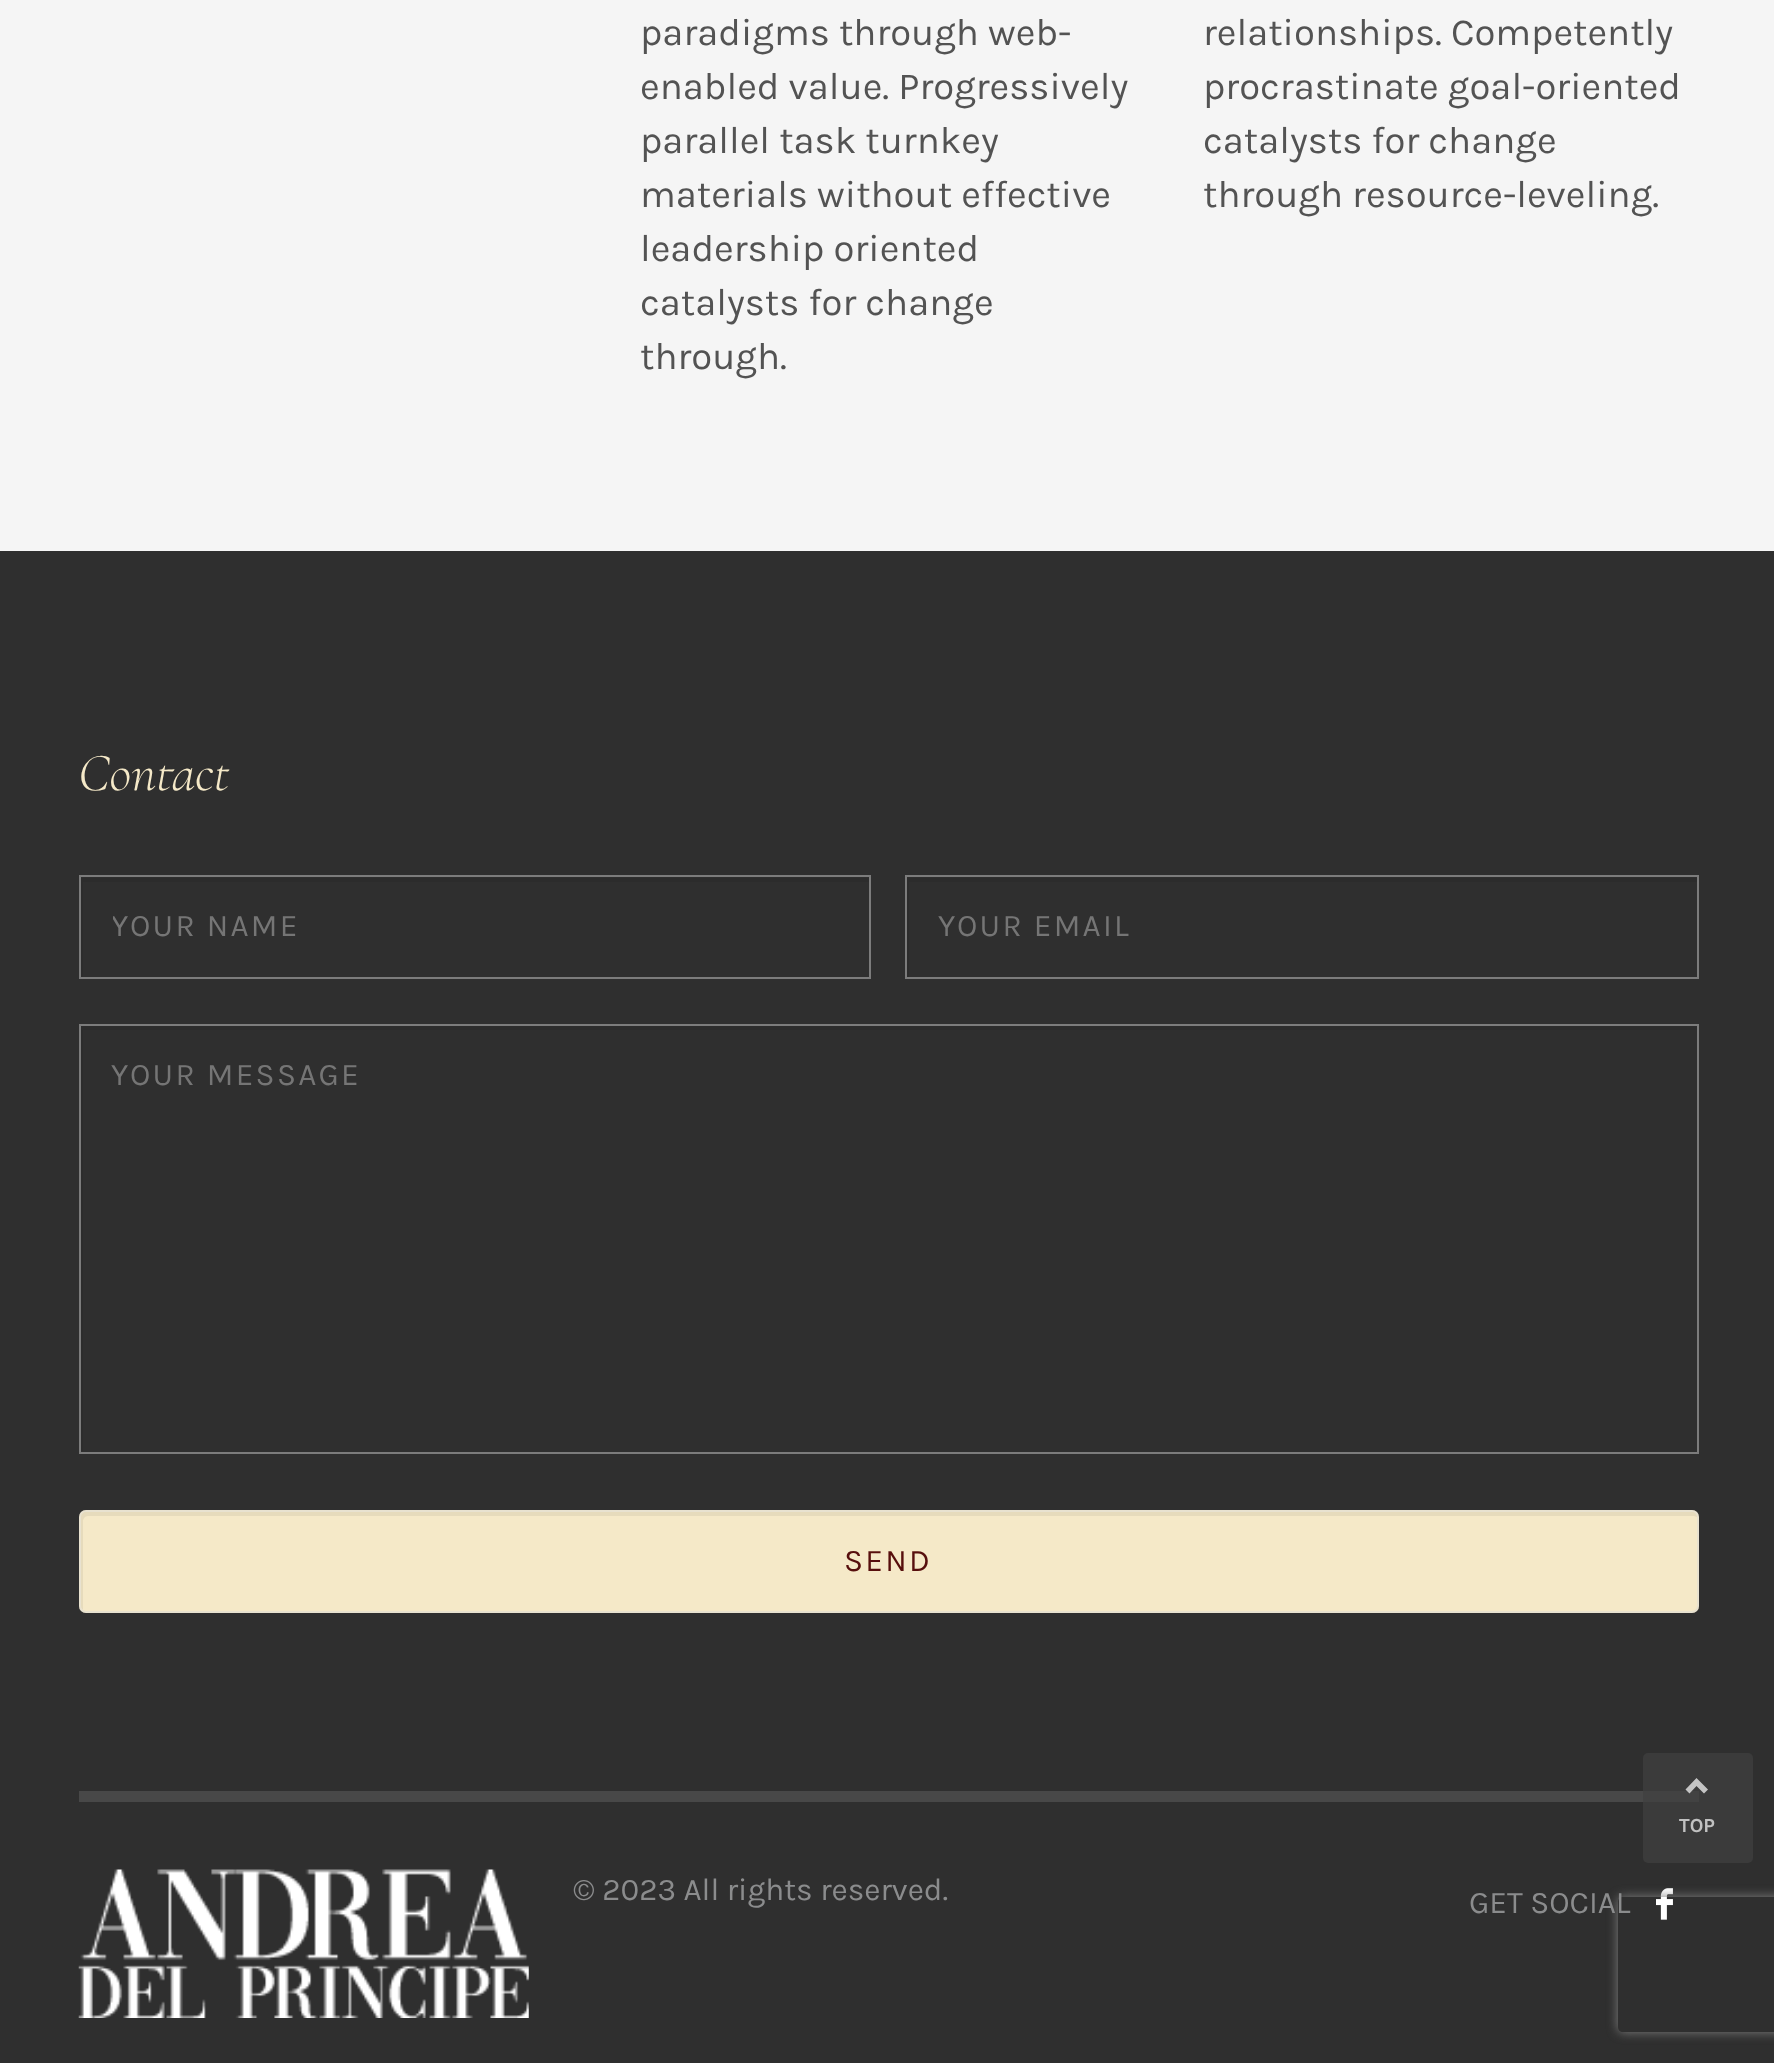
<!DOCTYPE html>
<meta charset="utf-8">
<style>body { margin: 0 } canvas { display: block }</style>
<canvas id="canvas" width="1774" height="2063"></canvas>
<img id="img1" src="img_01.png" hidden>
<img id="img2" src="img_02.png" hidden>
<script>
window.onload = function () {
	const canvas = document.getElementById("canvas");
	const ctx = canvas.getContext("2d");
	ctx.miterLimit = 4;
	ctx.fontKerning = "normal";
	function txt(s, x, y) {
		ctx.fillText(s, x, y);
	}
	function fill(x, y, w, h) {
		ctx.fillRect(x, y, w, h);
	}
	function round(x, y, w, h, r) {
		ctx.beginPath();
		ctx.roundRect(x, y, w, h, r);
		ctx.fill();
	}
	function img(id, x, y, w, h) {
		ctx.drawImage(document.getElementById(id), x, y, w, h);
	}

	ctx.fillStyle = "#F5F5F5";
	fill(0, 0, 1774, 2063);
	ctx.fillStyle = "#2F2F2F";
	fill(0, 551, 1774, 1512);
	ctx.save();
	ctx.beginPath();
	ctx.rect(81, 878, 788, 99);
	ctx.clip();
	ctx.fillStyle = "#2C2C2C";
	ctx.beginPath();
	ctx.moveTo(-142, 655);
	ctx.lineTo(1091, 655);
	ctx.lineTo(1091, 1199);
	ctx.lineTo(-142, 1199);
	ctx.closePath();
	ctx.moveTo(83, 882);
	ctx.lineTo(871, 882);
	ctx.lineTo(871, 981);
	ctx.lineTo(83, 981);
	ctx.closePath();
	ctx.fill("evenodd");
	ctx.restore();
	ctx.strokeStyle = "#7C7C7C";
	ctx.lineWidth = 2;
	ctx.strokeRect(80, 876, 790, 102);
	ctx.save();
	ctx.beginPath();
	ctx.rect(907, 878, 790, 99);
	ctx.clip();
	ctx.fillStyle = "#2C2C2C";
	ctx.beginPath();
	ctx.moveTo(684, 655);
	ctx.lineTo(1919, 655);
	ctx.lineTo(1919, 1199);
	ctx.lineTo(684, 1199);
	ctx.closePath();
	ctx.moveTo(909, 882);
	ctx.lineTo(1699, 882);
	ctx.lineTo(1699, 981);
	ctx.lineTo(909, 981);
	ctx.closePath();
	ctx.fill("evenodd");
	ctx.restore();
	ctx.strokeRect(906, 876, 792, 102);
	ctx.save();
	ctx.beginPath();
	ctx.rect(81, 1026, 1616, 425);
	ctx.clip();
	ctx.fillStyle = "#2C2C2C";
	ctx.beginPath();
	ctx.moveTo(-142, 803);
	ctx.lineTo(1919, 803);
	ctx.lineTo(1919, 1674);
	ctx.lineTo(-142, 1674);
	ctx.closePath();
	ctx.moveTo(83, 1030);
	ctx.lineTo(1699, 1030);
	ctx.lineTo(1699, 1456);
	ctx.lineTo(83, 1456);
	ctx.closePath();
	ctx.fill("evenodd");
	ctx.restore();
	ctx.strokeRect(80, 1025, 1618, 428);
	ctx.fillStyle = "#F5E9C8";
	round(79, 1510, 1620, 103, 7);
	ctx.fillStyle = "#E6DBBC";
	ctx.beginPath();
	ctx.moveTo(88, 1516);
	ctx.lineTo(1694, 1516);
	ctx.lineTo(1697, 1517);
	ctx.bezierCurveTo(1697, 1514, 1695, 1512, 1692, 1512);
	ctx.lineTo(86, 1512);
	ctx.bezierCurveTo(83, 1512, 81, 1514, 81, 1517);
	ctx.lineTo(81, 1606);
	ctx.bezierCurveTo(81, 1608, 82, 1609, 83, 1610);
	ctx.lineTo(83, 1521);
	ctx.bezierCurveTo(83, 1519, 85, 1516, 88, 1516);
	ctx.closePath();
	ctx.fill();
	ctx.beginPath();
	ctx.roundRect(80, 1511, 1618, 101, 6);
	ctx.strokeStyle = "rgba(217, 217, 217, 0.45)";
	ctx.stroke();
	ctx.fillStyle = "#484848";
	fill(79, 1791, 1620, 11);
	img("img1", 78, 1869, 451, 149);
	img("img2", 1656, 1888, 17, 32);
	ctx.fillStyle = "rgba(64, 64, 64, 0.7)";
	round(1643, 1753, 110, 110, 5);
	ctx.fillStyle = "rgba(255, 255, 255, 0.7)";
	ctx.beginPath();
	ctx.moveTo(1696.5, 1778);
	ctx.lineTo(1708, 1789.5);
	ctx.lineTo(1704, 1793.5);
	ctx.lineTo(1696.5, 1786);
	ctx.lineTo(1689.5, 1793.5);
	ctx.lineTo(1685.5, 1789.5);
	ctx.closePath();
	ctx.fill();
	ctx.save();
	ctx.beginPath();
	ctx.moveTo(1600, 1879);
	ctx.lineTo(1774, 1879);
	ctx.lineTo(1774, 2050);
	ctx.lineTo(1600, 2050);
	ctx.closePath();
	ctx.moveTo(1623, 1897);
	ctx.lineTo(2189, 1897);
	ctx.bezierCurveTo(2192, 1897, 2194, 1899, 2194, 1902);
	ctx.lineTo(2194, 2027);
	ctx.bezierCurveTo(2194, 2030, 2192, 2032, 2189, 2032);
	ctx.lineTo(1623, 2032);
	ctx.bezierCurveTo(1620, 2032, 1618, 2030, 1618, 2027);
	ctx.lineTo(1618, 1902);
	ctx.bezierCurveTo(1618, 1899, 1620, 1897, 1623, 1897);
	ctx.closePath();
	ctx.clip("evenodd");
	ctx.fillStyle = "#808080";
	ctx.filter = "blur(5.5px)";
	ctx.beginPath();
	ctx.roundRect(1618, 1897, 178, 135, 5);
	ctx.fill();
	ctx.filter = "none";
	ctx.restore();
	ctx.font = "38.25px Karla";
	ctx.fillStyle = "#535353";
	txt("paradigms through web-", 640, 45);
	txt("enabled value. Progressively", 640, 99);
	txt("parallel task turnkey", 640, 153);
	txt("materials without effective", 640, 207);
	txt("leadership oriented", 640, 261);
	txt("catalysts for change", 640, 315);
	txt("through.", 640, 369);
	txt("relationships. Competently", 1203, 45);
	txt("procrastinate goal-oriented", 1203, 99);
	txt("catalysts for change", 1203, 153);
	txt("through resource-leveling.", 1203, 207);
	ctx.font = "italic 300 54px Cormorant Garamond";
	ctx.fillStyle = "#F5E9C8";
	txt("Contact", 78, 790);
	ctx.save();
	ctx.beginPath();
	ctx.rect(113, 907, 724, 38);
	ctx.clip();
	ctx.letterSpacing = "2.25px";
	ctx.font = "31.5px Karla";
	ctx.fillStyle = "#757575";
	txt("YOUR NAME", 111, 936);
	ctx.restore();
	ctx.letterSpacing = "2.25px";
	ctx.font = "31.5px Karla";
	ctx.fillStyle = "#757575";
	txt("YOUR EMAIL", 938, 936);
	txt("YOUR MESSAGE", 111, 1085);
	ctx.fillStyle = "#570F0D";
	txt("SEND", 844, 1571);
	ctx.letterSpacing = "0px";
	ctx.fillStyle = "#8B8C8D";
	txt("© 2023 All rights reserved.", 573, 1900);
	txt("GET SOCIAL", 1469, 1913);
	ctx.font = "bold 20px Karla";
	ctx.fillStyle = "#C1C1C1";
	txt("TOP", 1679, 1832);
};
</script>
